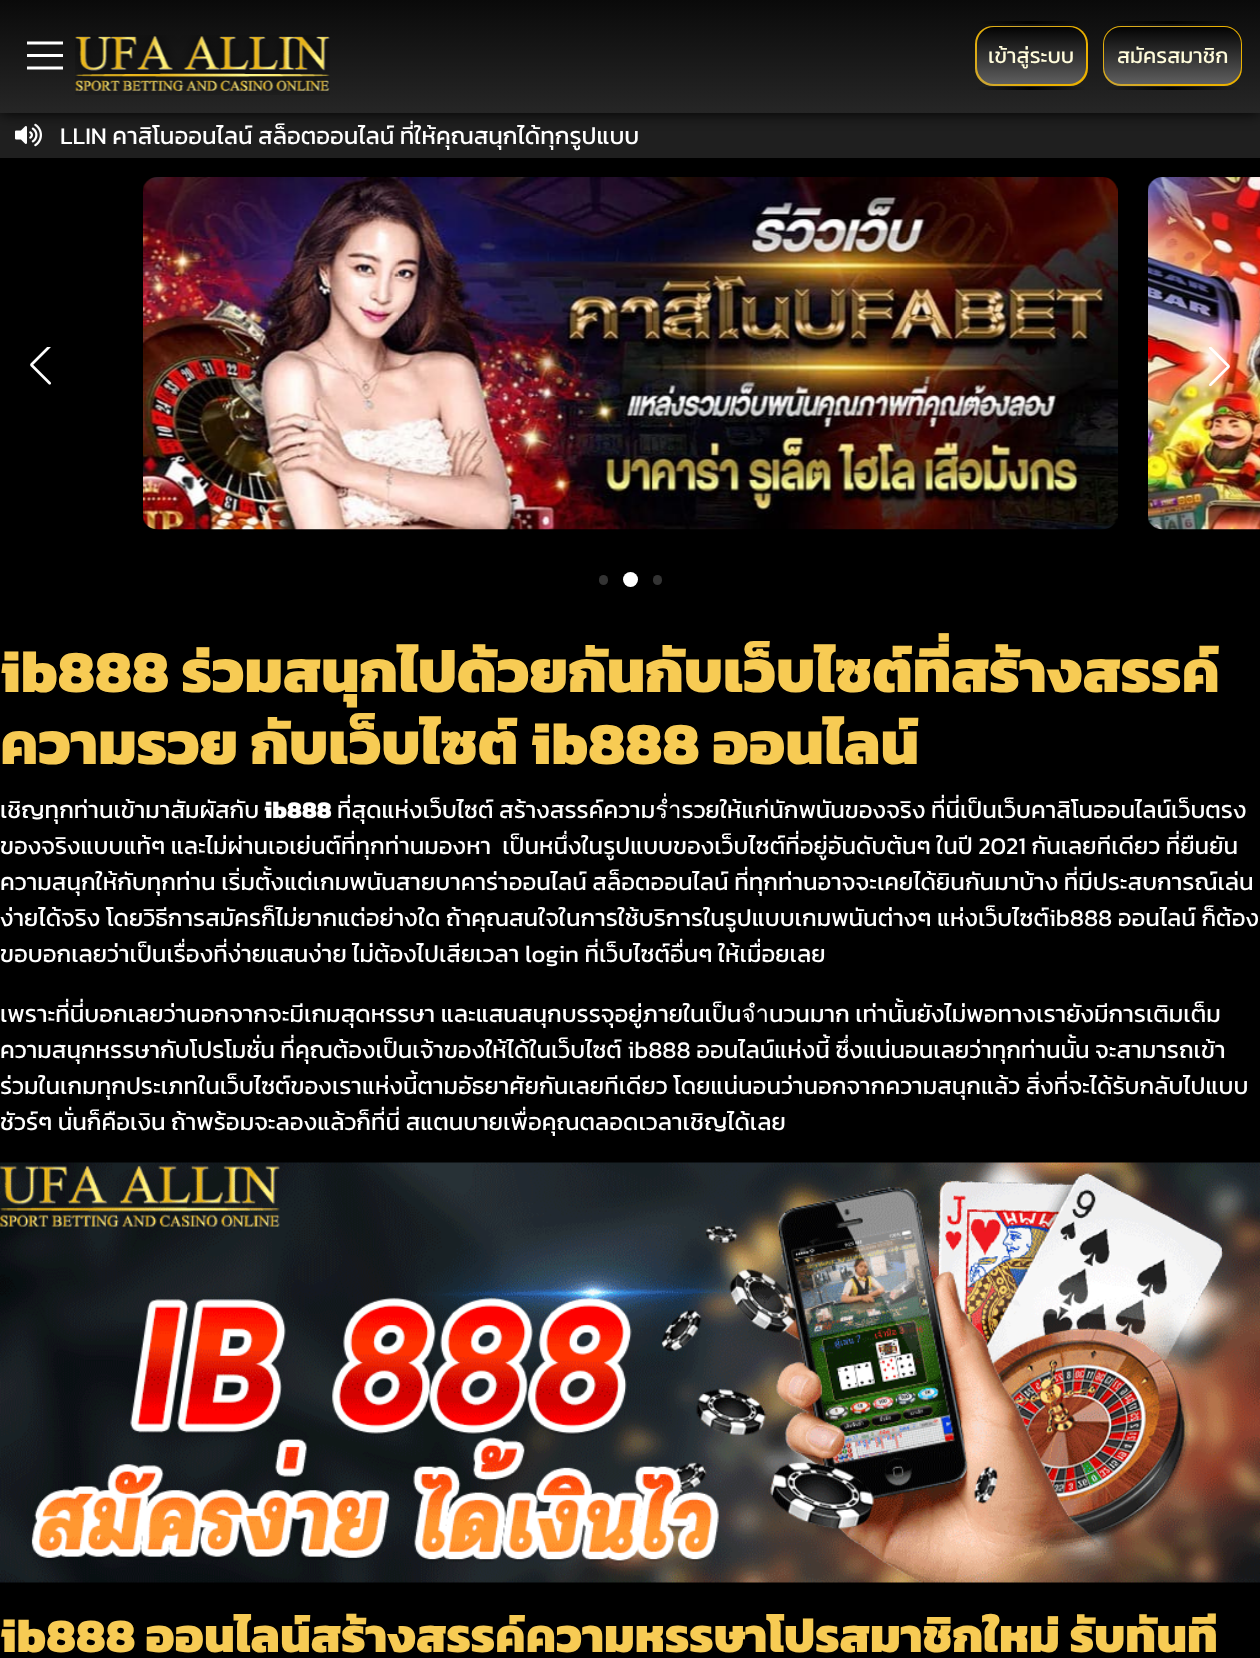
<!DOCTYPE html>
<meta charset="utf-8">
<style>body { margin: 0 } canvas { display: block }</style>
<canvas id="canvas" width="1260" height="1658"></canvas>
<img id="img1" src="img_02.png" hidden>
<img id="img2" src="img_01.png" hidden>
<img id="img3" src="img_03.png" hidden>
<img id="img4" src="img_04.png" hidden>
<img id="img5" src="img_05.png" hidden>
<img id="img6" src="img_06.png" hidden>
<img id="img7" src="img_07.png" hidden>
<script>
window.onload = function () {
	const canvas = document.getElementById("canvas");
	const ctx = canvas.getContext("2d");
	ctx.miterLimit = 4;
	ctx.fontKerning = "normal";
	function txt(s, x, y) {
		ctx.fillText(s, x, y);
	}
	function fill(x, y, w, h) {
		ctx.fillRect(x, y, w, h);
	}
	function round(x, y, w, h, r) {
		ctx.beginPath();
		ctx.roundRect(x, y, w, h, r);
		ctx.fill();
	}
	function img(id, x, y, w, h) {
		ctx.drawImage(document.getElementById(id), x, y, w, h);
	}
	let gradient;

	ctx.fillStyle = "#000000";
	fill(0, 0, 1260, 1658);
	ctx.fillStyle = "#1F1F1F";
	fill(0, 113, 1260, 45);
	img("img1", 15, 123, 27, 24);
	ctx.fillStyle = "#000000";
	ctx.filter = "blur(7.5px)";
	ctx.beginPath();
	ctx.rect(0, 0, 1260, 113);
	ctx.fill();
	ctx.filter = "none";
	gradient = ctx.createLinearGradient(630, 0, 630, 113);
	gradient.addColorStop(0, "#0A0A0A");
	gradient.addColorStop(1, "#262626");
	ctx.fillStyle = gradient;
	fill(0, 0, 1260, 113);
	ctx.beginPath();
	ctx.moveTo(27, 43);
	ctx.lineTo(63, 43);
	ctx.strokeStyle = "#FFFFFF";
	ctx.lineWidth = 3;
	ctx.stroke();
	ctx.fillStyle = "#FFFFFF";
	fill(27, 54, 36, 3);
	ctx.beginPath();
	ctx.moveTo(27, 68);
	ctx.lineTo(63, 68);
	ctx.stroke();
	img("img2", 75, 35, 255, 60);
	gradient = ctx.createLinearGradient(979, 19, 1083, 92);
	gradient.addColorStop(0, "#EBB100");
	gradient.addColorStop(0.32, "#CCA633");
	gradient.addColorStop(0.65, "#EBB100");
	gradient.addColorStop(1, "#EBB100");
	ctx.fillStyle = gradient;
	round(975, 26, 113, 60, 18);
	gradient = ctx.createLinearGradient(1031, 25, 1031, 86);
	gradient.addColorStop(0, "#000000");
	gradient.addColorStop(1, "#626262");
	ctx.fillStyle = gradient;
	round(977, 27, 109, 57, 17);
	gradient = ctx.createLinearGradient(1086, 22, 977, 23);
	gradient.addColorStop(0, "#101010");
	gradient.addColorStop(0.51, "#000000");
	gradient.addColorStop(1, "#101010");
	ctx.fillStyle = gradient;
	fill(977, 21, 100, 3);
	gradient = ctx.createLinearGradient(1086, 88, 977, 89);
	gradient.addColorStop(0, "#202020");
	gradient.addColorStop(0.51, "#000000");
	gradient.addColorStop(1, "#202020");
	ctx.fillStyle = gradient;
	fill(977, 87, 109, 3);
	gradient = ctx.createLinearGradient(1111, 13, 1233, 98);
	gradient.addColorStop(0, "#EBB100");
	gradient.addColorStop(0.32, "#CCA633");
	gradient.addColorStop(0.65, "#EBB100");
	gradient.addColorStop(1, "#EBB100");
	ctx.fillStyle = gradient;
	round(1103, 26, 139, 60, 18);
	gradient = ctx.createLinearGradient(1172, 25, 1172, 86);
	gradient.addColorStop(0, "#000000");
	gradient.addColorStop(1, "#626262");
	ctx.fillStyle = gradient;
	round(1104, 27, 137, 57, 17);
	gradient = ctx.createLinearGradient(1240, 22, 1105, 23);
	gradient.addColorStop(0, "#101010");
	gradient.addColorStop(0.51, "#000000");
	gradient.addColorStop(1, "#101010");
	ctx.fillStyle = gradient;
	fill(1115, 21, 114, 3);
	gradient = ctx.createLinearGradient(1240, 88, 1105, 89);
	gradient.addColorStop(0, "#202020");
	gradient.addColorStop(0.51, "#000000");
	gradient.addColorStop(1, "#202020");
	ctx.fillStyle = gradient;
	fill(1106, 87, 135, 3);
	img("img3", 30, 347, 21, 38);
	img("img4", 143, 177, 975, 353);
	img("img5", 1148, 177, 112, 353);
	img("img6", 1209, 347, 21, 39);
	ctx.fillStyle = "#333333";
	round(599, 575, 9, 10, 4.5);
	ctx.fillStyle = "#FFFFFF";
	ctx.beginPath();
	ctx.arc(630.5, 579.5, 7.5, 0, Math.PI * 2);
	ctx.fill();
	ctx.fillStyle = "#333333";
	round(653, 575, 9, 10, 4.5);
	img("img7", 0, 1162, 1260, 421);
	ctx.font = "21.5px Kanit";
	ctx.fillStyle = "#FFFCDB";
	txt("เข้าสู่ระบบ", 988, 63);
	txt("สมัครสมาชิก", 1117, 63);
	ctx.font = "24px Kanit";
	ctx.fillStyle = "#FFFFFF";
	txt("LLIN คาสิโนออนไลน์ สล็อตออนไลน์ ที่ให้คุณสนุกได้ทุกรูปแบบ", 60, 144);
	ctx.font = "800 60px Kanit";
	ctx.fillStyle = "#F7CB54";
	txt("ib888 ร่วมสนุกไปด้วยกันกับเว็บไซต์ที่สร้างสรรค์", 0, 692);
	txt("ความรวย กับเว็บไซต์ ib888 ออนไลน์", 0, 764);
	ctx.font = "24px Kanit";
	ctx.fillStyle = "#FFFFFF";
	txt("เชิญทุกท่านเข้ามาสัมผัสกับ", 0, 818);
	ctx.font = "800 24px Kanit";
	txt("ib888", 264, 818);
	ctx.font = "24px Kanit";
	txt("ที่สุดแห่งเว็บไซต์ สร้างสรรค์ความร่ำรวยให้แก่นักพนันของจริง ที่นี่เป็นเว็บคาสิโนออนไลน์เว็บตรง", 337, 818);
	txt("ของจริงแบบแท้ๆ และไม่ผ่านเอเย่นต์ที่ทุกท่านมองหา  เป็นหนึ่งในรูปแบบของเว็บไซต์ที่อยู่อันดับต้นๆ ในปี 2021 กันเลยทีเดียว ที่ยืนยัน", 0, 854);
	txt("ความสนุกให้กับทุกท่าน เริ่มตั้งแต่เกมพนันสายบาคาร่าออนไลน์ สล็อตออนไลน์ ที่ทุกท่านอาจจะเคยได้ยินกันมาบ้าง ที่มีประสบการณ์เล่น", 0, 890);
	txt("ง่ายได้จริง โดยวิธีการสมัครก็ไม่ยากแต่อย่างใด ถ้าคุณสนใจในการใช้บริการในรูปแบบเกมพนันต่างๆ แห่งเว็บไซต์ib888 ออนไลน์ ก็ต้อง", 0, 926);
	txt("ขอบอกเลยว่าเป็นเรื่องที่ง่ายแสนง่าย ไม่ต้องไปเสียเวลา login ที่เว็บไซต์อื่นๆ ให้เมื่อยเลย", 0, 962);
	txt("เพราะที่นี่บอกเลยว่านอกจากจะมีเกมสุดหรรษา และแสนสนุกบรรจุอยู่ภายในเป็นจำนวนมาก เท่านั้นยังไม่พอทางเรายังมีการเติมเต็ม", 0, 1022);
	txt("ความสนุกหรรษากับโปรโมชั่น ที่คุณต้องเป็นเจ้าของให้ได้ในเว็บไซต์ ib888 ออนไลน์แห่งนี้ ซึ่งแน่นอนเลยว่าทุกท่านนั้น จะสามารถเข้า", 0, 1058);
	txt("ร่วมในเกมทุกประเภทในเว็บไซต์ของเราแห่งนี้ตามอัธยาศัยกันเลยทีเดียว โดยแน่นอนว่านอกจากความสนุกแล้ว สิ่งที่จะได้รับกลับไปแบบ", 0, 1094);
	txt("ชัวร์ๆ นั่นก็คือเงิน ถ้าพร้อมจะลองแล้วก็ที่นี่ สแตนบายเพื่อคุณตลอดเวลาเชิญได้เลย", 0, 1130);
	ctx.font = "800 48px Kanit";
	ctx.fillStyle = "#F7CB54";
	txt("ib888 ออนไลน์สร้างสรรค์ความหรรษาโปรสมาชิกใหม่ รับทันที", 0, 1652);
};
</script>
